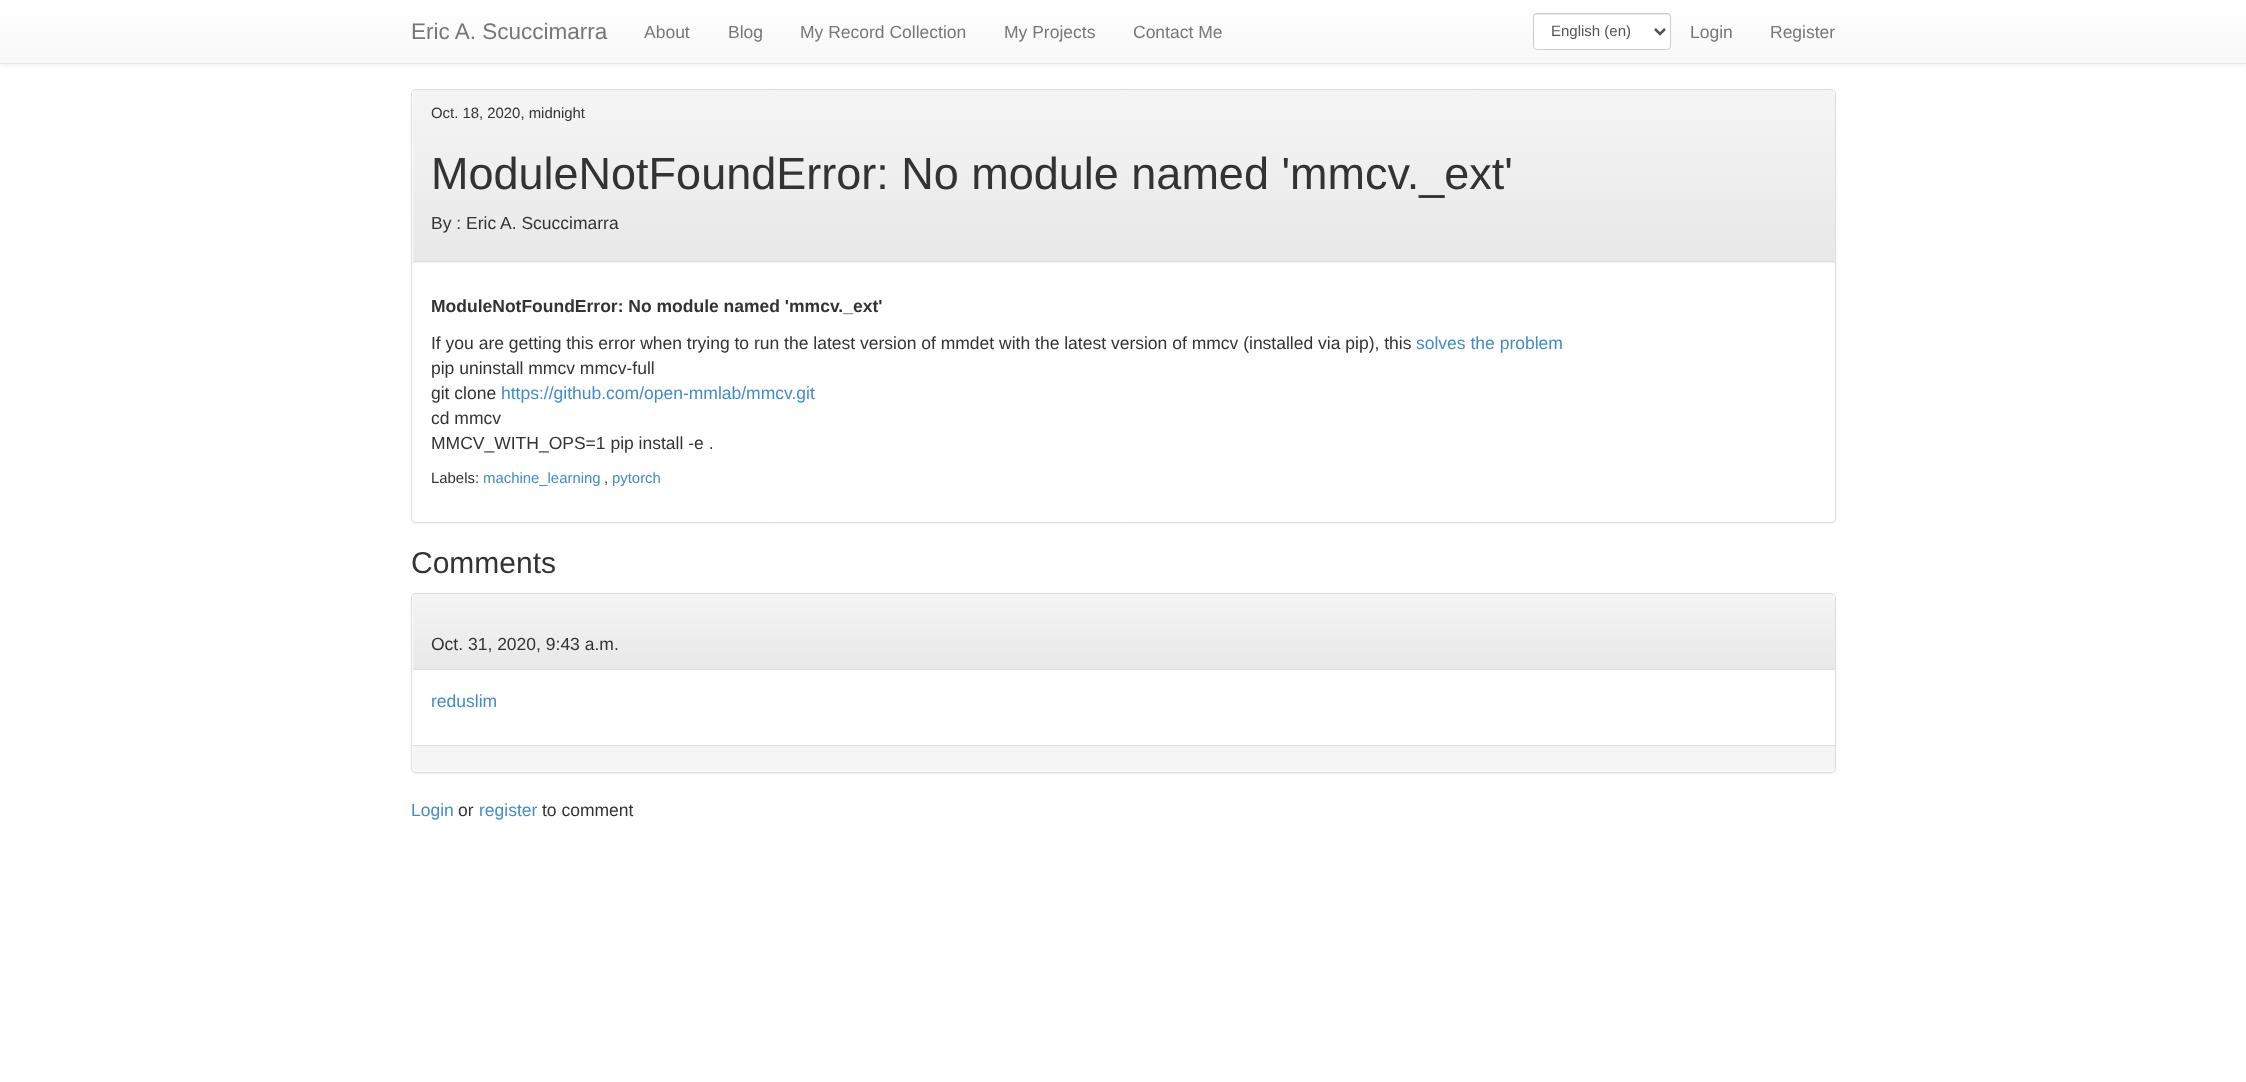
<!DOCTYPE html>
<meta charset="utf-8">
<style>body { margin: 0 } canvas { display: block }</style>
<canvas id="canvas" width="2246" height="1082"></canvas>
<script>
window.onload = function () {
	const canvas = document.getElementById("canvas");
	const ctx = canvas.getContext("2d");
	ctx.miterLimit = 4;
	ctx.fontKerning = "normal";
	function txt(s, x, y) {
		ctx.fillText(s, x, y);
	}
	function fill(x, y, w, h) {
		ctx.fillRect(x, y, w, h);
	}
	function round(x, y, w, h, r) {
		ctx.beginPath();
		ctx.roundRect(x, y, w, h, r);
		ctx.fill();
	}
	let gradient;

	ctx.fillStyle = "#FFFFFF";
	fill(0, 0, 2246, 1082);
	ctx.fillStyle = "rgba(0, 0, 0, 0.07)";
	ctx.filter = "blur(3px)";
	ctx.beginPath();
	ctx.rect(0, 1, 2246, 64);
	ctx.fill();
	ctx.filter = "none";
	gradient = ctx.createLinearGradient(1123, 0, 1123, 63);
	gradient.addColorStop(0, "#FFFFFF");
	gradient.addColorStop(1, "#F8F8F8");
	ctx.fillStyle = gradient;
	fill(0, 0, 2246, 63);
	ctx.fillStyle = "#E7E7E7";
	fill(0, 63, 2246, 1);
	ctx.fillStyle = "#FFFFFF";
	round(1533, 13, 138, 37, 4);
	ctx.fillStyle = "#ECECEC";
	ctx.beginPath();
	ctx.moveTo(1536, 15);
	ctx.lineTo(1668, 15);
	ctx.bezierCurveTo(1669, 15, 1670, 16, 1670, 18);
	ctx.lineTo(1670, 16);
	ctx.bezierCurveTo(1670, 15, 1669, 14, 1668, 14);
	ctx.lineTo(1536, 14);
	ctx.bezierCurveTo(1535, 14, 1534, 15, 1534, 16);
	ctx.lineTo(1534, 18);
	ctx.bezierCurveTo(1534, 16, 1535, 15, 1536, 15);
	ctx.closePath();
	ctx.fill();
	ctx.beginPath();
	ctx.roundRect(1533.5, 13.5, 137, 36, 3.5);
	ctx.strokeStyle = "#CCCCCC";
	ctx.stroke();
	ctx.beginPath();
	ctx.moveTo(1655, 29);
	ctx.lineTo(1660, 34);
	ctx.lineTo(1665, 29);
	ctx.strokeStyle = "#555555";
	ctx.lineWidth = 2.5;
	ctx.stroke();
	ctx.fillStyle = "rgba(0, 0, 0, 0.05)";
	ctx.filter = "blur(1px)";
	ctx.beginPath();
	ctx.roundRect(411, 90, 1425, 434, 5);
	ctx.fill();
	ctx.filter = "none";
	ctx.fillStyle = "#FFFFFF";
	ctx.beginPath();
	ctx.roundRect(411.5, 89.5, 1424, 433, 4.5);
	ctx.fill();
	ctx.strokeStyle = "#DDDDDD";
	ctx.lineWidth = 1;
	ctx.stroke();
	ctx.fillStyle = "#F5F5F5";
	ctx.beginPath();
	ctx.roundRect(413, 90, 1422, 173, [4, 4, 0, 0]);
	ctx.fill();
	gradient = ctx.createLinearGradient(1124, 90, 1124, 261);
	gradient.addColorStop(0, "#F5F5F5");
	gradient.addColorStop(1, "#E8E8E8");
	ctx.fillStyle = gradient;
	ctx.beginPath();
	ctx.roundRect(413, 90, 1422, 171, [4, 4, 0, 0]);
	ctx.fill();
	ctx.fillStyle = "#DDDDDD";
	fill(413, 261, 1422, 1);
	ctx.fillStyle = "rgba(0, 0, 0, 0.05)";
	ctx.filter = "blur(1px)";
	ctx.beginPath();
	ctx.roundRect(411, 594, 1425, 180, 5);
	ctx.fill();
	ctx.filter = "none";
	ctx.fillStyle = "#FFFFFF";
	ctx.beginPath();
	ctx.roundRect(411.5, 593.5, 1424, 179, 4.5);
	ctx.fill();
	ctx.stroke();
	gradient = ctx.createLinearGradient(1124, 594, 1124, 669);
	gradient.addColorStop(0, "#F5F5F5");
	gradient.addColorStop(1, "#E8E8E8");
	ctx.fillStyle = gradient;
	ctx.beginPath();
	ctx.roundRect(413, 594, 1422, 75, [4, 4, 0, 0]);
	ctx.fill();
	ctx.fillStyle = "#DDDDDD";
	fill(413, 669, 1422, 1);
	ctx.fillStyle = "#F5F5F5";
	ctx.beginPath();
	ctx.roundRect(413, 745, 1422, 26, [0, 0, 4, 4]);
	ctx.fill();
	ctx.fillStyle = "#DDDDDD";
	fill(413, 745, 1422, 1);
	ctx.font = "22.5px Liberation Sans";
	ctx.fillStyle = "#777777";
	txt("Eric A. Scuccimarra", 411, 39);
	ctx.font = "17.5px Liberation Sans";
	txt("About", 644, 38);
	txt("Blog", 728, 38);
	txt("My Record Collection", 800, 38);
	txt("My Projects", 1004, 38);
	txt("Contact Me", 1133, 38);
	ctx.font = "15px Liberation Sans";
	ctx.fillStyle = "#555555";
	txt("English (en)", 1551, 36);
	ctx.font = "17.5px Liberation Sans";
	ctx.fillStyle = "#777777";
	txt("Login", 1690, 38);
	txt("Register", 1770, 38);
	ctx.font = "14.9px Liberation Sans";
	ctx.fillStyle = "#333333";
	txt("Oct. 18, 2020, midnight", 431, 118);
	ctx.font = "45px Liberation Sans";
	txt("ModuleNotFoundError: No module named 'mmcv._ext'", 431, 189);
	ctx.font = "17.5px Liberation Sans";
	txt("By : Eric A. Scuccimarra", 431, 229);
	ctx.font = "bold 17.5px Liberation Sans";
	txt("ModuleNotFoundError: No module named 'mmcv._ext'", 431, 312);
	ctx.font = "17.5px Liberation Sans";
	txt("If you are getting this error when trying to run the latest version of mmdet with the latest version of mmcv (installed via pip), this", 431, 349);
	ctx.fillStyle = "#428BCA";
	txt("solves the problem", 1416, 349);
	ctx.fillStyle = "#333333";
	txt("pip uninstall mmcv mmcv-full", 431, 374);
	txt("git clone", 431, 399);
	ctx.fillStyle = "#428BCA";
	txt("https://github.com/open-mmlab/mmcv.git", 501, 399);
	ctx.fillStyle = "#333333";
	txt("cd mmcv", 431, 424);
	txt("MMCV_WITH_OPS=1 pip install -e .", 431, 449);
	ctx.font = "14.9px Liberation Sans";
	txt("Labels:", 431, 483);
	ctx.fillStyle = "#428BCA";
	txt("machine_learning", 483, 483);
	ctx.fillStyle = "#333333";
	txt(",", 604, 483);
	ctx.fillStyle = "#428BCA";
	txt("pytorch", 612, 483);
	ctx.font = "30px Liberation Sans";
	ctx.fillStyle = "#333333";
	txt("Comments", 411, 573);
	ctx.font = "17.5px Liberation Sans";
	txt("Oct. 31, 2020, 9:43 a.m.", 431, 650);
	ctx.fillStyle = "#428BCA";
	txt("reduslim", 431, 707);
	txt("Login", 411, 816);
	ctx.fillStyle = "#333333";
	txt("or", 458, 816);
	ctx.fillStyle = "#428BCA";
	txt("register", 479, 816);
	ctx.fillStyle = "#333333";
	txt("to comment", 542, 816);
};
</script>
